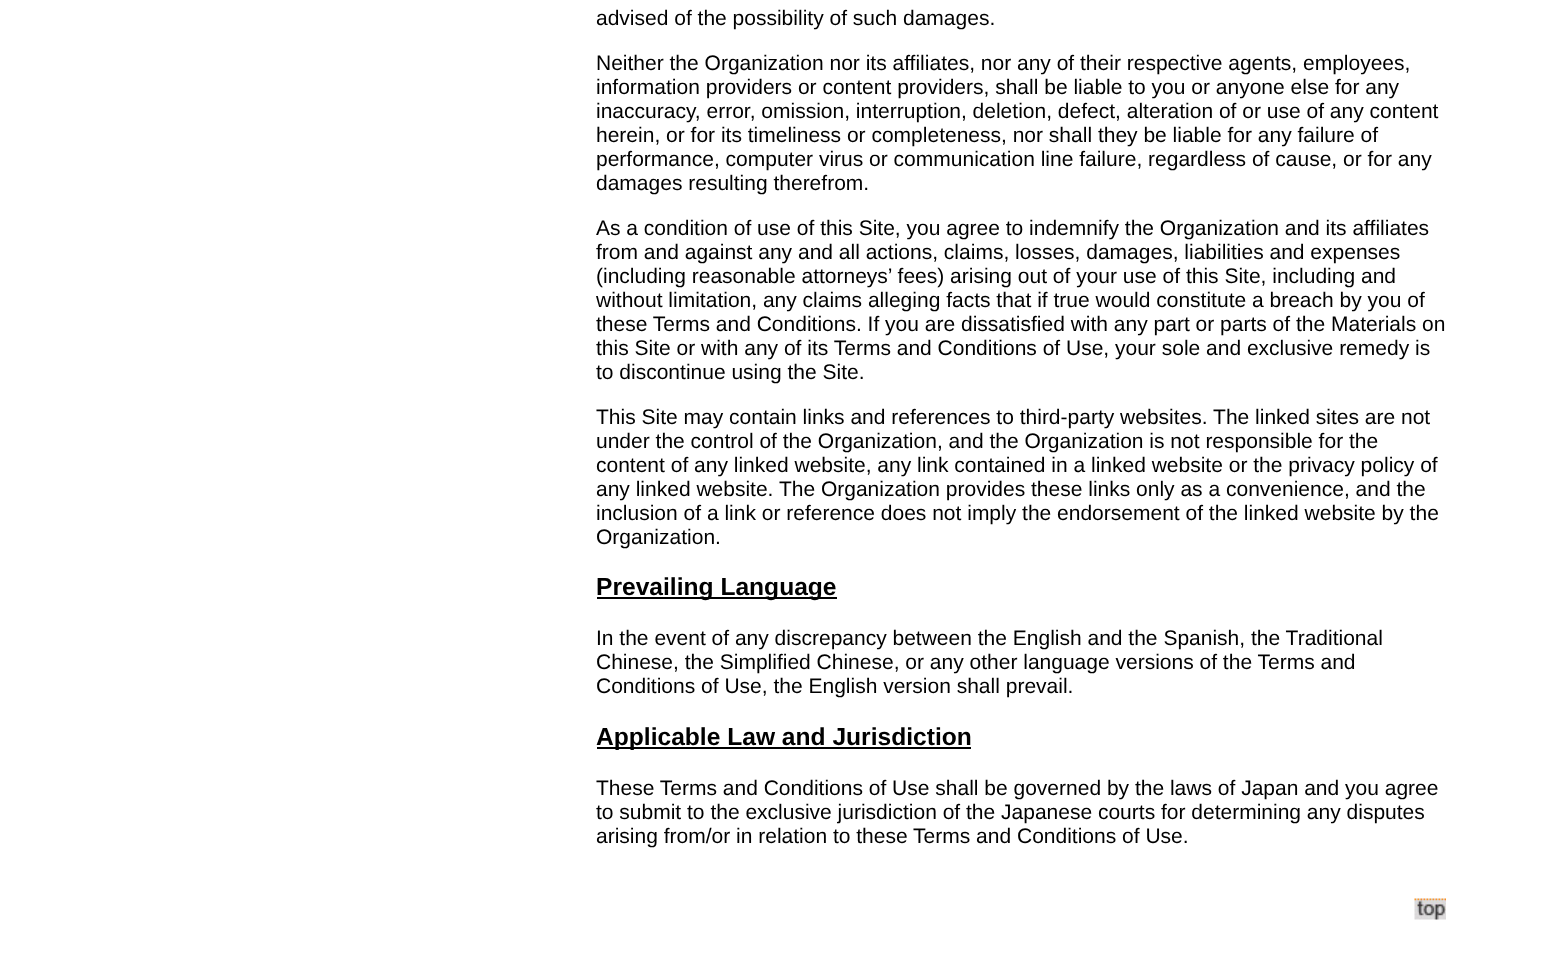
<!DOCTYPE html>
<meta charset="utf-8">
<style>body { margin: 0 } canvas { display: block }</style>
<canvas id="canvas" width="1549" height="965"></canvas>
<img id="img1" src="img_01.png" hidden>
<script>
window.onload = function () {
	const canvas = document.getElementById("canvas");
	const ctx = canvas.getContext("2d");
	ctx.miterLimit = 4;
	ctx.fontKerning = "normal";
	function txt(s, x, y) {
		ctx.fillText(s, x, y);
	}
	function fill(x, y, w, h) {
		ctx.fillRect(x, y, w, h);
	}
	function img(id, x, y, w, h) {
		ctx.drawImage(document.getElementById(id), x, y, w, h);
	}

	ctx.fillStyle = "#FFFFFF";
	fill(0, 0, 1549, 965);
	ctx.fillStyle = "#000000";
	fill(597, 597, 240, 2);
	fill(597, 747, 374, 2);
	img("img1", 1414, 898, 32, 22);
	ctx.font = "21px Liberation Sans";
	txt("advised of the possibility of such damages.", 596, 25);
	txt("Neither the Organization nor its affiliates, nor any of their respective agents, employees,", 596, 70);
	txt("information providers or content providers, shall be liable to you or anyone else for any", 596, 94);
	txt("inaccuracy, error, omission, interruption, deletion, defect, alteration of or use of any content", 596, 118);
	txt("herein, or for its timeliness or completeness, nor shall they be liable for any failure of", 596, 142);
	txt("performance, computer virus or communication line failure, regardless of cause, or for any", 596, 166);
	txt("damages resulting therefrom.", 596, 190);
	txt("As a condition of use of this Site, you agree to indemnify the Organization and its affiliates", 596, 235);
	txt("from and against any and all actions, claims, losses, damages, liabilities and expenses", 596, 259);
	txt("(including reasonable attorneys’ fees) arising out of your use of this Site, including and", 596, 283);
	txt("without limitation, any claims alleging facts that if true would constitute a breach by you of", 596, 307);
	txt("these Terms and Conditions. If you are dissatisfied with any part or parts of the Materials on", 596, 331);
	txt("this Site or with any of its Terms and Conditions of Use, your sole and exclusive remedy is", 596, 355);
	txt("to discontinue using the Site.", 596, 379);
	txt("This Site may contain links and references to third-party websites. The linked sites are not", 596, 424);
	txt("under the control of the Organization, and the Organization is not responsible for the", 596, 448);
	txt("content of any linked website, any link contained in a linked website or the privacy policy of", 596, 472);
	txt("any linked website. The Organization provides these links only as a convenience, and the", 596, 496);
	txt("inclusion of a link or reference does not imply the endorsement of the linked website by the", 596, 520);
	txt("Organization.", 596, 544);
	ctx.font = "bold 24.6px Liberation Sans";
	txt("Prevailing Language", 596, 595);
	ctx.font = "21px Liberation Sans";
	txt("In the event of any discrepancy between the English and the Spanish, the Traditional", 596, 645);
	txt("Chinese, the Simplified Chinese, or any other language versions of the Terms and", 596, 669);
	txt("Conditions of Use, the English version shall prevail.", 596, 693);
	ctx.font = "bold 24.6px Liberation Sans";
	txt("Applicable Law and Jurisdiction", 596, 745);
	ctx.font = "21px Liberation Sans";
	txt("These Terms and Conditions of Use shall be governed by the laws of Japan and you agree", 596, 795);
	txt("to submit to the exclusive jurisdiction of the Japanese courts for determining any disputes", 596, 819);
	txt("arising from/or in relation to these Terms and Conditions of Use.", 596, 843);
};
</script>
